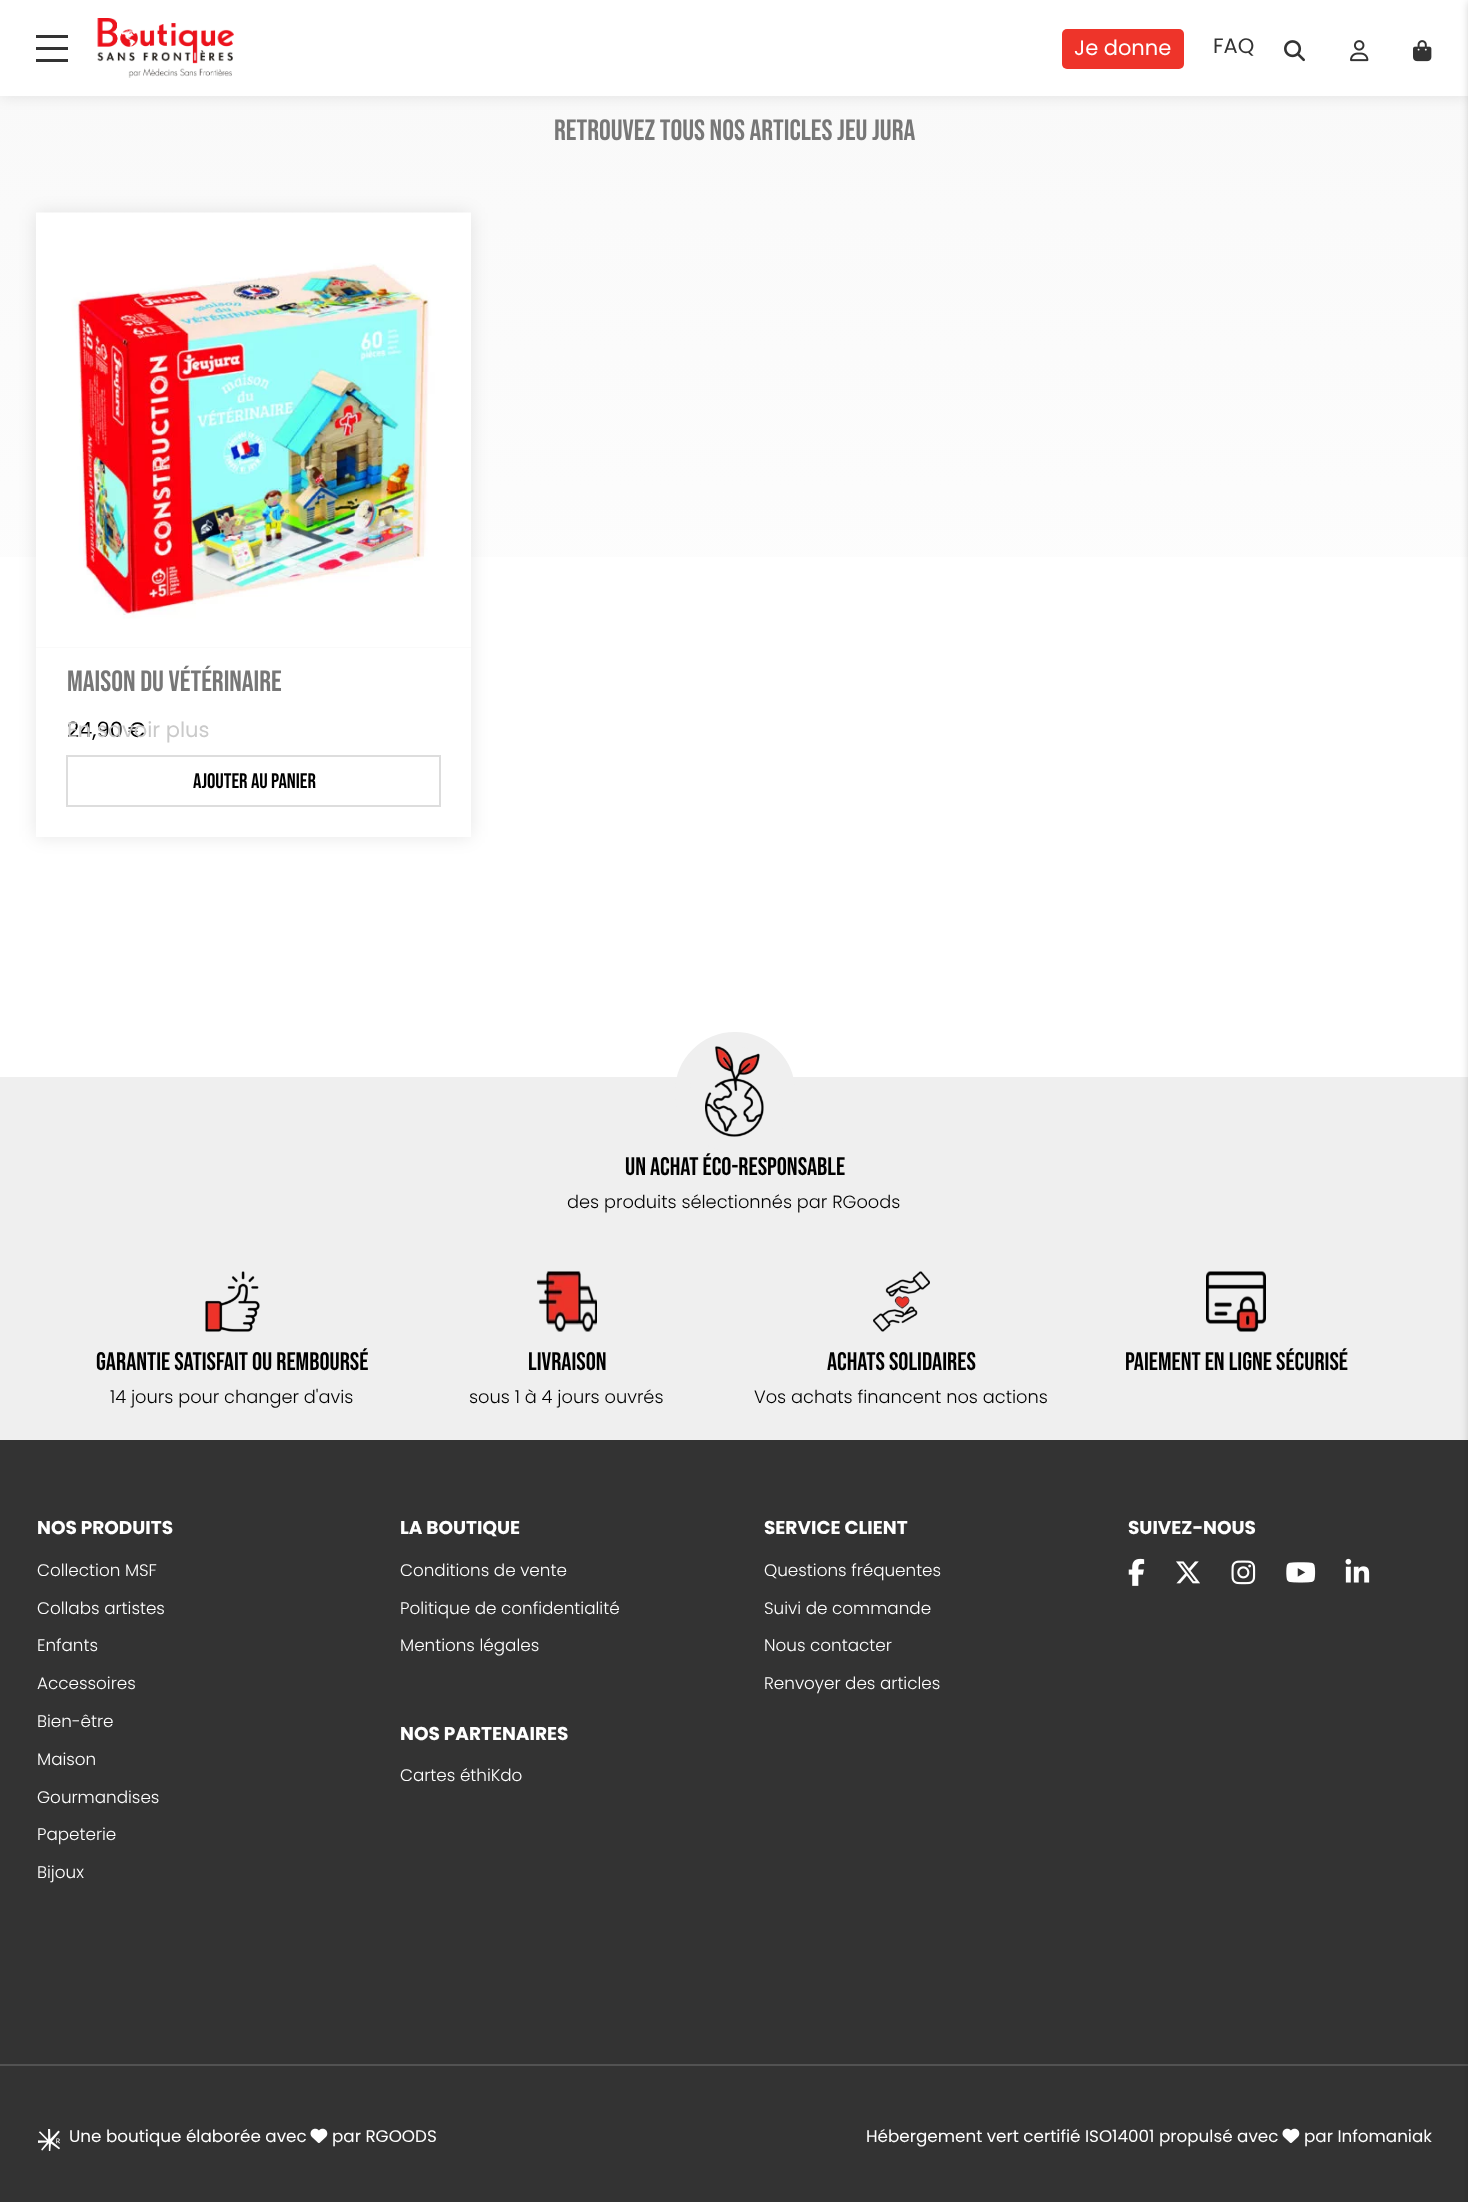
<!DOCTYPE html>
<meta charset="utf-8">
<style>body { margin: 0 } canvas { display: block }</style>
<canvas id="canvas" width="1468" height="2202"></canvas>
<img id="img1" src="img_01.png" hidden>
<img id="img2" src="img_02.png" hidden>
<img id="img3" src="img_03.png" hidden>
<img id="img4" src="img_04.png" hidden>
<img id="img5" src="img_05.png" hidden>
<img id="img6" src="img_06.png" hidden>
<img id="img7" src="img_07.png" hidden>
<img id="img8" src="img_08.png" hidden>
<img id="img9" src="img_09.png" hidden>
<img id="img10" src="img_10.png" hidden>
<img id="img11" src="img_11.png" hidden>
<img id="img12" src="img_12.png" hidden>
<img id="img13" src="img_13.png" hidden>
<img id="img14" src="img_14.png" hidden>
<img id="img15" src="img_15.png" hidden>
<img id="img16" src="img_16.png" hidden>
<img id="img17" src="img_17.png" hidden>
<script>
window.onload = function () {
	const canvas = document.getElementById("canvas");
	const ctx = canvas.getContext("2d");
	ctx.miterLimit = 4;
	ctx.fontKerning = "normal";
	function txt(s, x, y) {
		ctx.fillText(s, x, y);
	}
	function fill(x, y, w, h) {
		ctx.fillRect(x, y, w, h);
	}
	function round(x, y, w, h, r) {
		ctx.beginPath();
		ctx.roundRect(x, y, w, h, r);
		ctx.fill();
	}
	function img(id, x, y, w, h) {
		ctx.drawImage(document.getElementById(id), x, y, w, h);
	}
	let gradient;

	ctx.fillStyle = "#FFFFFF";
	fill(0, 0, 1468, 2202);
	gradient = ctx.createLinearGradient(734, -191, 734, 897);
	gradient.addColorStop(0, "#F7F7F7");
	gradient.addColorStop(1, "#FFFFFF");
	ctx.fillStyle = gradient;
	fill(0, 96, 1468, 461);
	ctx.fillStyle = "rgba(0, 0, 0, 0.1)";
	ctx.filter = "blur(7.5px)";
	ctx.beginPath();
	ctx.rect(0, 0, 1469, 96);
	ctx.fill();
	ctx.filter = "none";
	ctx.fillStyle = "#FFFFFF";
	fill(0, 0, 1468, 96);
	ctx.fillStyle = "#333333";
	fill(36, 35, 32, 3);
	fill(36, 59, 32, 3);
	fill(36, 47, 32, 3);
	img("img1", 97, 18, 137, 60);
	ctx.fillStyle = "#EE342A";
	round(1062, 29, 122, 40, 5);
	img("img2", 1284, 40, 21, 22);
	img("img3", 1350, 40, 19, 22);
	img("img4", 1413, 40, 19, 22);
	ctx.fillStyle = "#EFEFEF";
	fill(0, 1077, 1468, 363);
	ctx.fillStyle = "#333333";
	fill(0, 1440, 1468, 762);
	ctx.fillStyle = "#525252";
	fill(0, 2064, 1468, 2);
	ctx.fillStyle = "rgba(0, 0, 0, 0.2)";
	ctx.filter = "blur(4px)";
	ctx.beginPath();
	ctx.rect(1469, 2, 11, 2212);
	ctx.fill();
	ctx.filter = "none";
	ctx.save();
	ctx.beginPath();
	ctx.moveTo(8, 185);
	ctx.lineTo(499, 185);
	ctx.lineTo(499, 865);
	ctx.lineTo(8, 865);
	ctx.closePath();
	ctx.moveTo(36, 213);
	ctx.lineTo(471, 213);
	ctx.lineTo(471, 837);
	ctx.lineTo(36, 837);
	ctx.closePath();
	ctx.clip("evenodd");
	ctx.fillStyle = "rgba(0, 0, 0, 0.1)";
	ctx.filter = "blur(9px)";
	ctx.beginPath();
	ctx.rect(36, 213, 435, 624);
	ctx.fill();
	ctx.filter = "none";
	ctx.restore();
	ctx.fillStyle = "#F4F4F4";
	fill(36, 647, 435, 1);
	img("img5", 36, 212, 435, 436);
	ctx.strokeStyle = "#DDDDDD";
	ctx.lineWidth = 2;
	ctx.strokeRect(67, 756, 373, 50);
	ctx.fillStyle = "#EFEFEF";
	ctx.beginPath();
	ctx.arc(735, 1092, 52.5, 0, Math.PI * 2);
	ctx.fill();
	ctx.strokeStyle = "#EFEFEF";
	ctx.lineWidth = 15;
	ctx.stroke();
	img("img6", 705, 1046, 59, 91);
	img("img7", 205, 1271, 55, 61);
	img("img8", 537, 1271, 60, 61);
	img("img9", 873, 1271, 57, 61);
	img("img10", 1206, 1271, 60, 61);
	img("img11", 1128, 1558, 17, 28);
	img("img12", 1176, 1561, 24, 23);
	img("img13", 1231, 1560, 25, 25);
	img("img14", 1286, 1562, 30, 21);
	img("img15", 1345, 1558, 25, 25);
	img("img16", 38, 2129, 22, 22);
	img("img17", 310, 2128, 18, 15);
	img("img17", 1282, 2128, 18, 15);
	ctx.font = "21px Poppins";
	ctx.fillStyle = "#FFFFFF";
	txt("Je donne", 1074, 55);
	ctx.fillStyle = "#333333";
	txt("FAQ", 1213, 53);
	ctx.font = "29.4px Bebas Neue";
	ctx.fillStyle = "#777777";
	txt("Retrouvez tous nos articles Jeu Jura", 554, 140);
	txt("MAISON DU VÉTÉRINAIRE", 67, 691);
	ctx.font = "21px Poppins";
	ctx.fillStyle = "#000000";
	txt("24,90", 67, 737);
	txt("€", 128, 737);
	ctx.fillStyle = "#CACACA";
	txt("En savoir plus", 67, 737);
	ctx.font = "21px Bebas Neue";
	ctx.fillStyle = "#000000";
	txt("Ajouter au panier", 193, 788);
	ctx.font = "25.25px Bebas Neue";
	txt("Un achat éco-responsable", 625, 1175);
	ctx.font = "300 17.8px Poppins";
	txt("des produits sélectionnés par RGoods", 567, 1208);
	ctx.font = "25.25px Bebas Neue";
	txt("Garantie satisfait ou remboursé", 96, 1370);
	ctx.font = "300 17.8px Poppins";
	txt("14 jours pour changer d'avis", 110, 1403);
	ctx.font = "25.25px Bebas Neue";
	txt("Livraison", 528, 1370);
	ctx.font = "300 17.8px Poppins";
	txt("sous 1 à 4 jours ouvrés", 469, 1403);
	ctx.font = "25.25px Bebas Neue";
	txt("Achats solidaires", 827, 1370);
	ctx.font = "300 17.8px Poppins";
	txt("Vos achats financent nos actions", 754, 1403);
	ctx.font = "25.25px Bebas Neue";
	txt("Paiement en ligne sécurisé", 1125, 1370);
	ctx.font = "bold 18.5px Poppins";
	ctx.fillStyle = "#FFFFFF";
	txt("NOS PRODUITS", 37, 1534);
	ctx.font = "300 16.8px Poppins";
	txt("Collection MSF", 37, 1576);
	txt("Collabs artistes", 37, 1614);
	txt("Enfants", 37, 1651);
	txt("Accessoires", 37, 1689);
	txt("Bien-être", 37, 1727);
	txt("Maison", 37, 1765);
	txt("Gourmandises", 37, 1803);
	txt("Papeterie", 37, 1840);
	txt("Bijoux", 37, 1878);
	ctx.font = "bold 18.5px Poppins";
	txt("LA BOUTIQUE", 400, 1534);
	ctx.font = "300 16.8px Poppins";
	txt("Conditions de vente", 400, 1576);
	txt("Politique de confidentialité", 400, 1614);
	txt("Mentions légales", 400, 1651);
	ctx.font = "bold 18.5px Poppins";
	txt("NOS PARTENAIRES", 400, 1740);
	ctx.font = "300 16.8px Poppins";
	txt("Cartes éthiKdo", 400, 1781);
	ctx.font = "bold 18.5px Poppins";
	txt("SERVICE CLIENT", 764, 1534);
	ctx.font = "300 16.8px Poppins";
	txt("Questions fréquentes", 764, 1576);
	txt("Suivi de commande", 764, 1614);
	txt("Nous contacter", 764, 1651);
	txt("Renvoyer des articles", 764, 1689);
	ctx.font = "bold 18.5px Poppins";
	txt("SUIVEZ-NOUS", 1128, 1534);
	ctx.font = "16.8px Poppins";
	txt("Une boutique élaborée avec", 69, 2142);
	txt("par RGOODS", 332, 2142);
	txt("Hébergement vert certifié ISO14001 propulsé avec", 866, 2142);
	txt("par Infomaniak", 1304, 2142);
};
</script>
